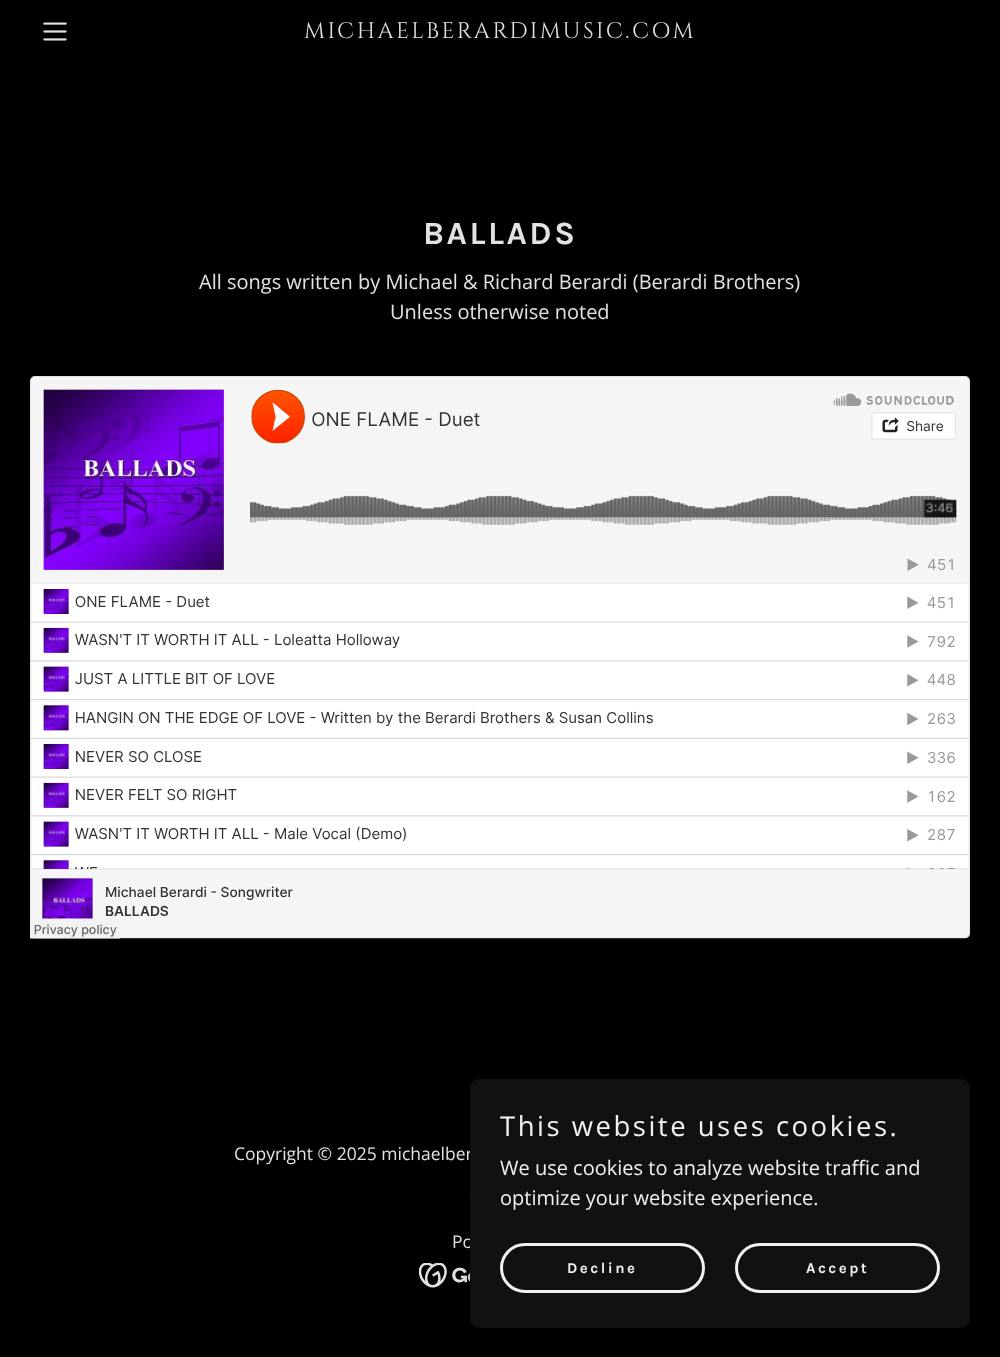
<!DOCTYPE html>
<meta charset="utf-8">
<style>body { margin: 0 } canvas { display: block }</style>
<canvas id="canvas" width="1000" height="1357"></canvas>
<img id="img1" src="img_01.png" hidden>
<img id="img2" src="img_02.png" hidden>
<img id="img3" src="img_03.png" hidden>
<script>
window.onload = function () {
	const canvas = document.getElementById("canvas");
	const ctx = canvas.getContext("2d");
	ctx.miterLimit = 4;
	ctx.fontKerning = "normal";
	function txt(s, x, y) {
		ctx.fillText(s, x, y);
	}
	function fill(x, y, w, h) {
		ctx.fillRect(x, y, w, h);
	}
	function round(x, y, w, h, r) {
		ctx.beginPath();
		ctx.roundRect(x, y, w, h, r);
		ctx.fill();
	}
	function img(id, x, y, w, h) {
		ctx.drawImage(document.getElementById(id), x, y, w, h);
	}

	ctx.fillStyle = "#000000";
	fill(0, 0, 1000, 1357);
	img("img1", 43, 22, 24, 19);
	img("img2", 30, 376, 940, 563);
	ctx.fillStyle = "#1B1B1B";
	fill(469, 1196, 1, 1);
	img("img3", 419, 1263, 51, 25);
	ctx.fillStyle = "rgba(0, 0, 0, 0.3)";
	ctx.filter = "blur(4px)";
	ctx.beginPath();
	ctx.roundRect(470, 1081, 500, 249, 9);
	ctx.fill();
	ctx.filter = "none";
	ctx.letterSpacing = "2.5px";
	ctx.font = "22.5px Cinzel";
	ctx.fillStyle = "#E2E2E2";
	txt("MICHAELBERARDIMUSIC.COM", 304, 38);
	ctx.font = "bold 32.5px Karla";
	txt("BALLADS", 423, 244);
	ctx.letterSpacing = "0px";
	ctx.font = "20px Open Sans";
	txt("All songs written by Michael & Richard Berardi (Berardi Brothers)", 199, 289);
	txt("Unless otherwise noted", 390, 319);
	ctx.font = "17.5px Open Sans";
	txt("Copyright © 2025 michaelber", 234, 1160);
	txt("Po", 452, 1248);
	ctx.fillStyle = "#111111";
	round(470, 1079, 500, 249, 9);
	ctx.letterSpacing = "2.5px";
	ctx.font = "27.5px Open Sans";
	ctx.fillStyle = "#F1F1F1";
	txt("This website uses cookies.", 500, 1136);
	ctx.letterSpacing = "0px";
	ctx.font = "20px Open Sans";
	txt("We use cookies to analyze website traffic and", 500, 1175);
	txt("optimize your website experience.", 500, 1205);
	ctx.beginPath();
	ctx.roundRect(501.5, 1244.5, 202, 47, 23.5);
	ctx.strokeStyle = "#F1F1F1";
	ctx.lineWidth = 3;
	ctx.stroke();
	ctx.letterSpacing = "2.5px";
	ctx.font = "bold 15px Karla";
	txt("Decline", 567, 1273);
	ctx.beginPath();
	ctx.roundRect(736.5, 1244.5, 202, 47, 23.5);
	ctx.stroke();
	txt("Accept", 806, 1273);
};
</script>
